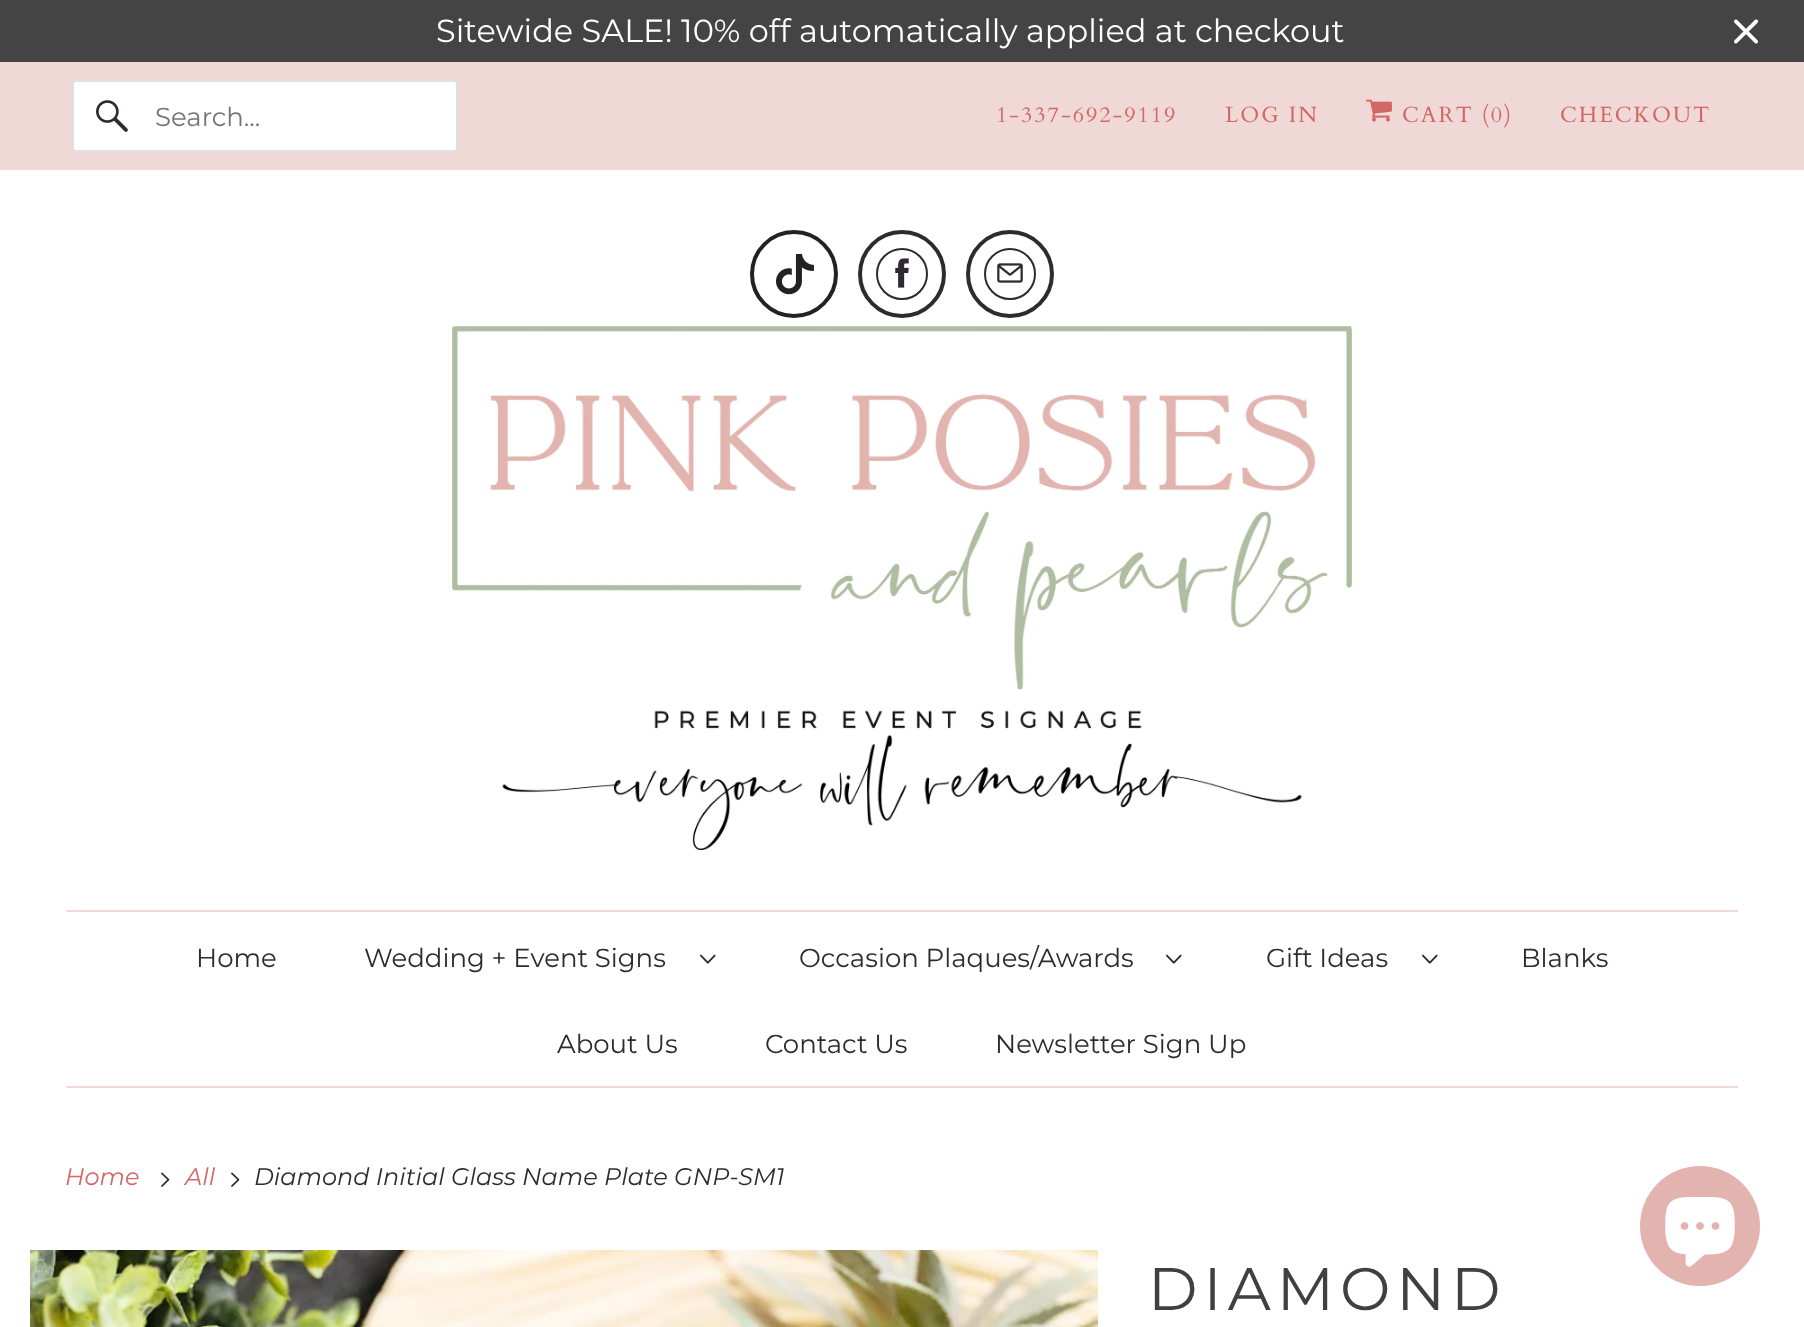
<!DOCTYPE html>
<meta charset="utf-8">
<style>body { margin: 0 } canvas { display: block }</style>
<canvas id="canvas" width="1804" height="1327"></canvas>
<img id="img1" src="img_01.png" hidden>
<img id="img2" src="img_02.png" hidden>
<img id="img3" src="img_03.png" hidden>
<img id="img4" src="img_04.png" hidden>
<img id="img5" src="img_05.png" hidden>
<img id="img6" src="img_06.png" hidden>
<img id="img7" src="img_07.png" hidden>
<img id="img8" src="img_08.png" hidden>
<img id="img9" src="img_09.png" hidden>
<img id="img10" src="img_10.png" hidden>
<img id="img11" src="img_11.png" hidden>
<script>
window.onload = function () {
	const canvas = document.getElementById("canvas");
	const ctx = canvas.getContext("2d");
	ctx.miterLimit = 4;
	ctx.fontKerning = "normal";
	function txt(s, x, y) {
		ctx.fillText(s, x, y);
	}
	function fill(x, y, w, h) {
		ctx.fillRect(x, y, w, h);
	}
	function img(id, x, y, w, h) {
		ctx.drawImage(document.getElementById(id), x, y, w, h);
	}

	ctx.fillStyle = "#FFFFFF";
	fill(0, 0, 1804, 1327);
	ctx.fillStyle = "#444444";
	fill(0, 0, 1804, 62);
	img("img1", 1734, 19, 25, 25);
	ctx.fillStyle = "#F0D8D6";
	fill(0, 62, 1804, 108);
	ctx.fillStyle = "#FFFFFF";
	ctx.beginPath();
	ctx.roundRect(73, 81, 384, 70, 3);
	ctx.fill();
	ctx.strokeStyle = "#DFDFDF";
	ctx.lineWidth = 2;
	ctx.stroke();
	img("img2", 96, 100, 32, 32);
	img("img3", 1366, 99, 26, 23);
	ctx.beginPath();
	ctx.arc(794, 274, 42, 0, Math.PI * 2);
	ctx.strokeStyle = "#222222";
	ctx.lineWidth = 4;
	ctx.stroke();
	img("img4", 775, 254, 39, 41);
	ctx.beginPath();
	ctx.arc(902, 274, 42, 0, Math.PI * 2);
	ctx.strokeStyle = "#2F2A31";
	ctx.stroke();
	ctx.beginPath();
	ctx.arc(902, 274, 25, 0, Math.PI * 2);
	ctx.lineWidth = 2;
	ctx.stroke();
	img("img5", 895, 258, 14, 30);
	ctx.beginPath();
	ctx.arc(1010, 274, 42, 0, Math.PI * 2);
	ctx.lineWidth = 4;
	ctx.stroke();
	ctx.beginPath();
	ctx.arc(1010, 274, 25, 0, Math.PI * 2);
	ctx.lineWidth = 2;
	ctx.stroke();
	img("img6", 997, 263, 26, 20);
	img("img7", 452, 326, 900, 524);
	ctx.fillStyle = "#F0D8D6";
	fill(66, 910, 1672, 2);
	fill(66, 1086, 1672, 2);
	img("img8", 700, 954, 16, 10);
	img("img8", 1166, 954, 16, 10);
	img("img8", 1422, 954, 16, 10);
	img("img9", 161, 1172, 9, 15);
	img("img9", 231, 1172, 9, 15);
	ctx.fillStyle = "#E3B3AF";
	ctx.beginPath();
	ctx.arc(1700, 1226, 60, 0, Math.PI * 2);
	ctx.fill();
	img("img10", 1665, 1197, 70, 70);
	img("img11", 30, 1250, 1068, 77);
	ctx.font = "100 32px Montserrat";
	ctx.fillStyle = "#FFFFFF";
	txt("Sitewide SALE! 10% off automatically applied at checkout", 436, 42);
	ctx.font = "100 26px Montserrat";
	ctx.fillStyle = "#757575";
	txt("Search...", 155, 126);
	ctx.letterSpacing = "2px";
	ctx.font = "22px Cardo";
	ctx.fillStyle = "#D16866";
	txt("1-337-692-9119", 996, 122);
	txt("LOG IN", 1225, 122);
	txt("CART (0)", 1402, 122);
	txt("CHECKOUT", 1560, 122);
	ctx.letterSpacing = "0px";
	ctx.font = "100 26px Montserrat";
	ctx.fillStyle = "#2F2A31";
	txt("Home", 196, 967);
	txt("Wedding + Event Signs", 364, 967);
	txt("Occasion Plaques/Awards", 799, 967);
	txt("Gift Ideas", 1266, 967);
	txt("Blanks", 1521, 967);
	txt("About Us", 557, 1053);
	txt("Contact Us", 765, 1053);
	txt("Newsletter Sign Up", 995, 1053);
	ctx.font = "italic 24px Montserrat";
	ctx.fillStyle = "#D16866";
	txt("Home", 65, 1185);
	txt("All", 185, 1185);
	ctx.fillStyle = "#2F2A31";
	txt("Diamond Initial Glass Name Plate GNP-SM1", 254, 1185);
	ctx.letterSpacing = "6px";
	ctx.font = "100 60px Montserrat";
	ctx.fillStyle = "#404040";
	txt("DIAMOND", 1148, 1310);
};
</script>
